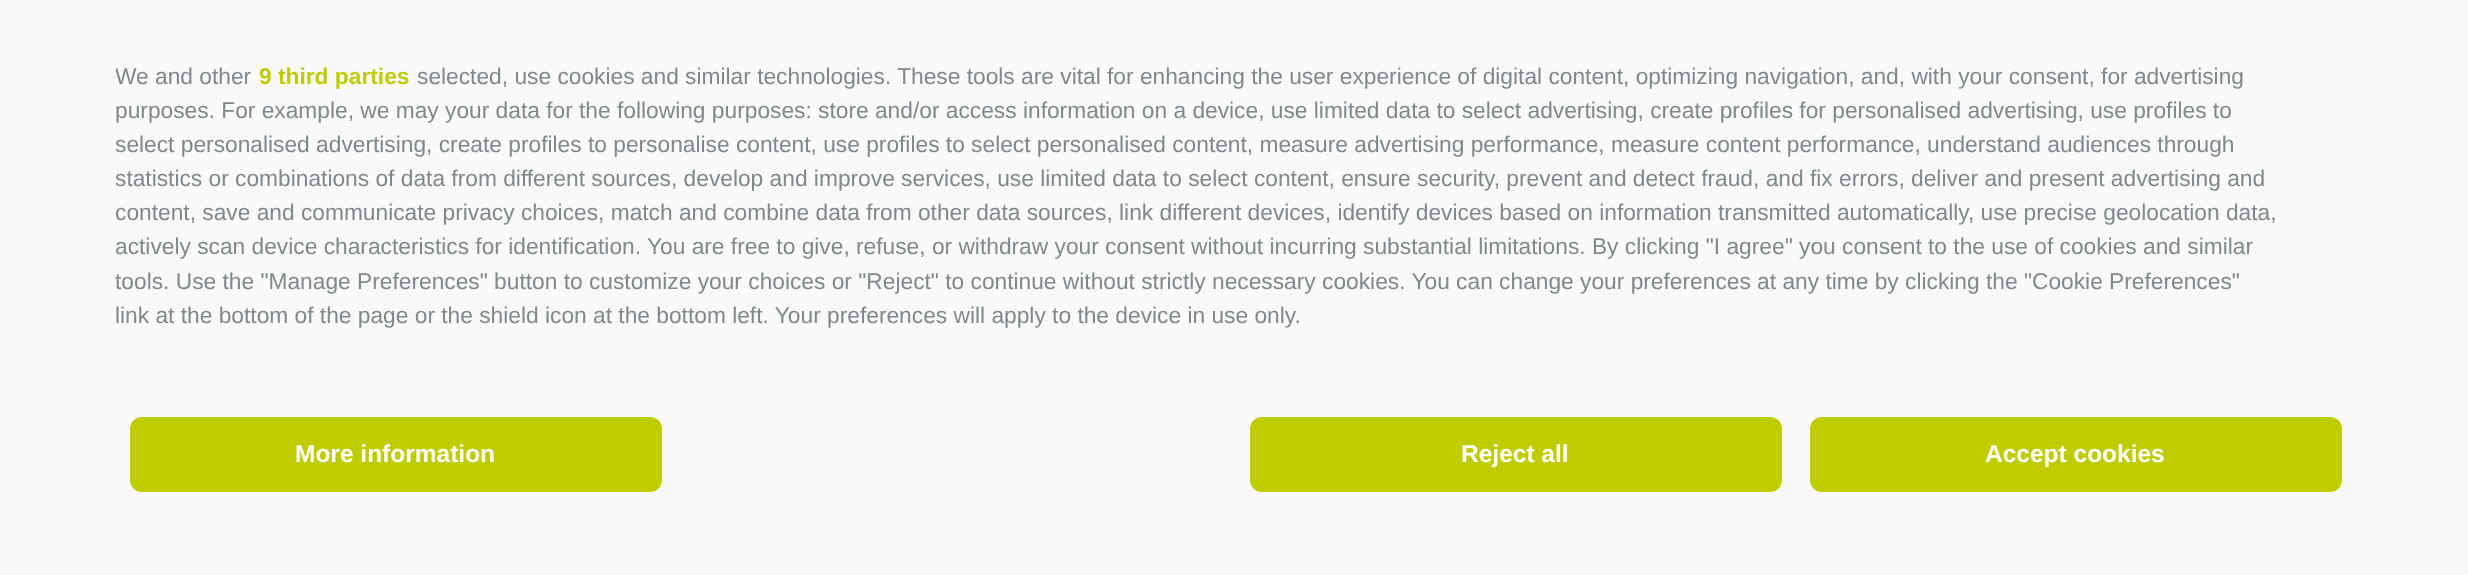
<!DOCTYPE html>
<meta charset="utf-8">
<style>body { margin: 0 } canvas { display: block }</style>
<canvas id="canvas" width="2468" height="575"></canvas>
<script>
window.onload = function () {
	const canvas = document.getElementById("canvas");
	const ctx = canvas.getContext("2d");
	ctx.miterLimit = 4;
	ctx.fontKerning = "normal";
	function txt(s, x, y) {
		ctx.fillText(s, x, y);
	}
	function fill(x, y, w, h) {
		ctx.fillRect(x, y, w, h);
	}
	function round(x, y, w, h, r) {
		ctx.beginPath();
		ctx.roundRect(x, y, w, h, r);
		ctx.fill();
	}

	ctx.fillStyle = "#F9F9F9";
	fill(0, 0, 2468, 575);
	ctx.fillStyle = "#BFCC00";
	round(130, 417, 532, 75, 12);
	round(1250, 417, 532, 75, 12);
	round(1810, 417, 532, 75, 12);
	ctx.save();
	ctx.beginPath();
	ctx.rect(116, 60, 2240, 273);
	ctx.clip();
	ctx.font = "22.75px Liberation Sans";
	ctx.fillStyle = "#80888C";
	txt("We and other", 115, 84);
	ctx.restore();
	ctx.font = "bold 22.75px Liberation Sans";
	txt("9 third parties", 259, 84);
	ctx.font = "22.75px Liberation Sans";
	ctx.fillStyle = "#80888C";
	txt("selected, use cookies and similar technologies. These tools are vital for enhancing the user experience of digital content, optimizing navigation, and, with your consent, for advertising", 417, 84);
	txt("purposes. For example, we may your data for the following purposes: store and/or access information on a device, use limited data to select advertising, create profiles for personalised advertising, use profiles to", 115, 118);
	ctx.save();
	ctx.beginPath();
	ctx.rect(116, 60, 2240, 273);
	ctx.clip();
	txt("select personalised advertising, create profiles to personalise content, use profiles to select personalised content, measure advertising performance, measure content performance, understand audiences through", 115, 152);
	txt("statistics or combinations of data from different sources, develop and improve services, use limited data to select content, ensure security, prevent and detect fraud, and fix errors, deliver and present advertising and", 115, 186);
	txt("content, save and communicate privacy choices, match and combine data from other data sources, link different devices, identify devices based on information transmitted automatically, use precise geolocation data,", 115, 220);
	txt("actively scan device characteristics for identification. You are free to give, refuse, or withdraw your consent without incurring substantial limitations. By clicking \"I agree\" you consent to the use of cookies and similar", 115, 254);
	ctx.restore();
	txt("tools. Use the \"Manage Preferences\" button to customize your choices or \"Reject\" to continue without strictly necessary cookies. You can change your preferences at any time by clicking the \"Cookie Preferences\"", 115, 289);
	txt("link at the bottom of the page or the shield icon at the bottom left. Your preferences will apply to the device in use only.", 115, 323);
	ctx.font = "bold 24.5px Liberation Sans";
	ctx.fillStyle = "#FFFFFF";
	txt("More information", 295, 462);
	txt("Reject all", 1461, 462);
	txt("Accept cookies", 1985, 462);
};
</script>
